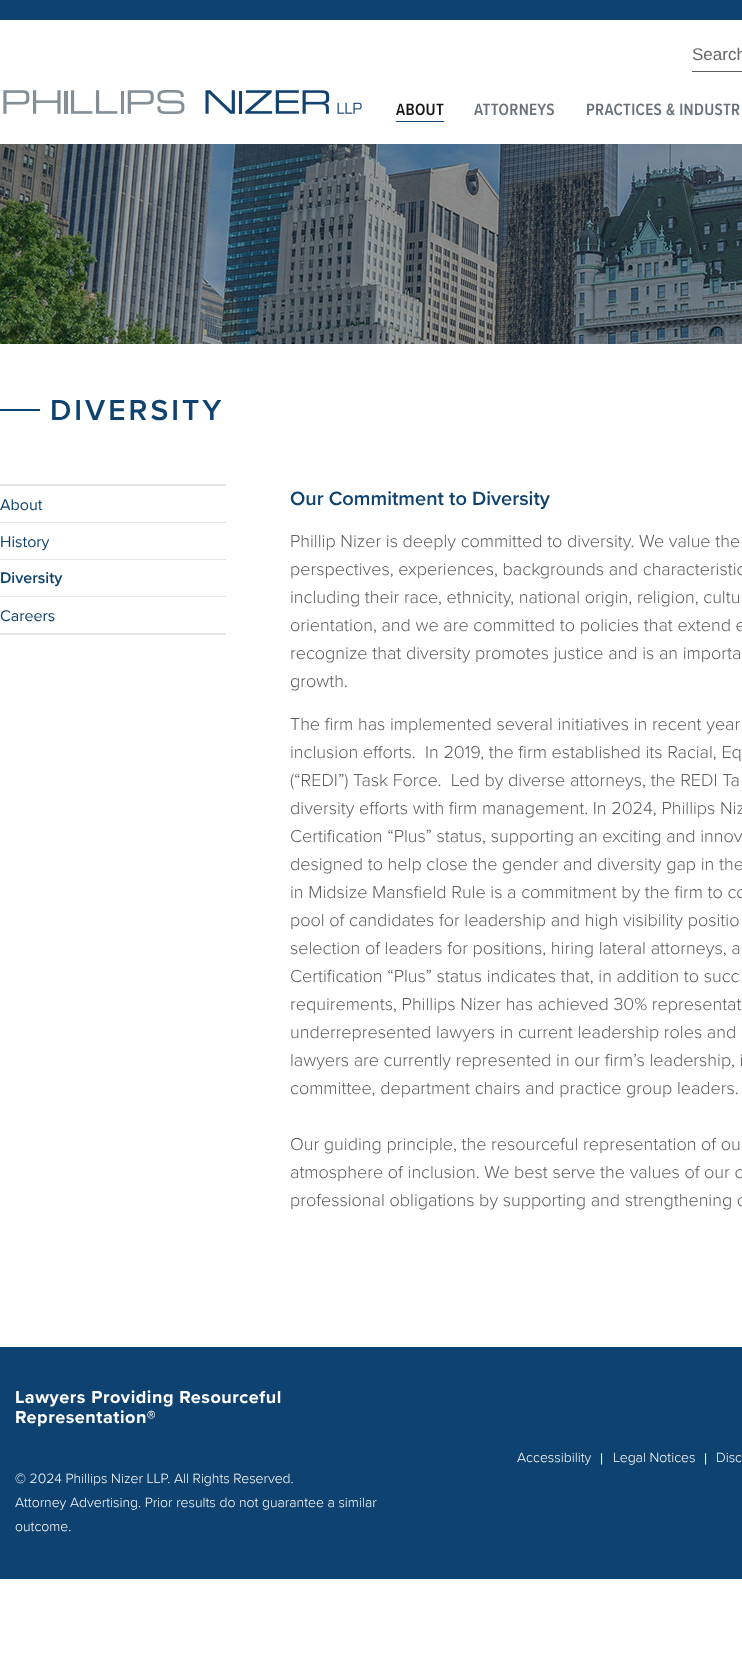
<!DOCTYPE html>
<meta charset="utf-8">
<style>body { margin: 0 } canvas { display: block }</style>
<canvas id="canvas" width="742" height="1661"></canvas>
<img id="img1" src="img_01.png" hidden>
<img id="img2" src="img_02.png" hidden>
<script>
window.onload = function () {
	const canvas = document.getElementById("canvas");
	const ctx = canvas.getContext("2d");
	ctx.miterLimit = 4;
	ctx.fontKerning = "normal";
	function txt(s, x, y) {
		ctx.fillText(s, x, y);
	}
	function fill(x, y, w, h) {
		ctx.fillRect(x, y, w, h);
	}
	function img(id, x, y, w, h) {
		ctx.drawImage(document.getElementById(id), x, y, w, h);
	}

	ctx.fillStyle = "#FFFFFF";
	fill(0, 0, 742, 1661);
	ctx.fillStyle = "#0E4270";
	fill(0, 0, 742, 20);
	ctx.fillStyle = "#5D5D5D";
	fill(692, 71, 50, 1);
	img("img1", 3, 90, 359, 24);
	ctx.fillStyle = "#0E4270";
	fill(396, 121, 48, 1);
	img("img2", 0, 144, 742, 200);
	ctx.fillStyle = "#0E426F";
	fill(0, 409, 40, 2);
	ctx.fillStyle = "#E6E6E6";
	fill(0, 484, 226, 2);
	fill(0, 522, 226, 1);
	fill(0, 559, 226, 1);
	fill(0, 596, 226, 1);
	fill(0, 633, 226, 2);
	ctx.fillStyle = "#0E4270";
	fill(0, 1347, 742, 232);
	ctx.font = "17px Liberation Sans";
	ctx.fillStyle = "#666666";
	txt("Search", 692, 60);
	ctx.letterSpacing = "0.3px";
	ctx.font = "600 17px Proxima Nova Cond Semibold";
	ctx.fillStyle = "#151515";
	txt("ABOUT", 396, 115);
	ctx.fillStyle = "#6A7279";
	txt("ATTORNEYS", 474, 115);
	txt("PRACTICES & INDUSTR", 586, 115);
	ctx.letterSpacing = "3px";
	ctx.font = "600 30px Proxima Nova";
	ctx.fillStyle = "#0E426F";
	txt("DIVERSITY", 50, 420);
	ctx.letterSpacing = "0px";
	ctx.font = "16px Proxima Nova";
	txt("About", 0, 510);
	txt("History", 0, 547);
	ctx.font = "600 16px Proxima Nova";
	txt("Diversity", 0, 583);
	ctx.font = "16px Proxima Nova";
	txt("Careers", 0, 621);
	ctx.font = "600 20px Proxima Nova";
	txt("Our Commitment to Diversity", 290, 505);
	ctx.font = "300 18px Proxima Nova";
	ctx.fillStyle = "#5D5D5D";
	txt("Phillip Nizer is deeply committed to diversity. We value the", 290, 547);
	txt("perspectives, experiences, backgrounds and characteristic", 290, 575);
	txt("including their race, ethnicity, national origin, religion, cultu", 290, 603);
	txt("orientation, and we are committed to policies that extend e", 290, 631);
	txt("recognize that diversity promotes justice and is an importa", 290, 659);
	txt("growth.", 290, 687);
	txt("The firm has implemented several initiatives in recent year", 290, 730);
	txt("inclusion efforts.  In 2019, the firm established its Racial, Eq", 290, 758);
	txt("(“REDI”) Task Force.  Led by diverse attorneys, the REDI Ta", 290, 786);
	txt("diversity efforts with firm management. In 2024, Phillips Niz", 290, 814);
	txt("Certification “Plus” status, supporting an exciting and innov", 290, 842);
	txt("designed to help close the gender and diversity gap in the", 290, 870);
	txt("in Midsize Mansfield Rule is a commitment by the firm to co", 290, 898);
	txt("pool of candidates for leadership and high visibility positio", 290, 926);
	txt("selection of leaders for positions, hiring lateral attorneys, a", 290, 954);
	txt("Certification “Plus” status indicates that, in addition to succ", 290, 982);
	txt("requirements, Phillips Nizer has achieved 30% representat", 290, 1010);
	txt("underrepresented lawyers in current leadership roles and", 290, 1038);
	txt("lawyers are currently represented in our firm’s leadership, i", 290, 1066);
	txt("committee, department chairs and practice group leaders.", 290, 1094);
	txt("Our guiding principle, the resourceful representation of ou", 290, 1150);
	txt("atmosphere of inclusion. We best serve the values of our c", 290, 1178);
	txt("professional obligations by supporting and strengthening o", 290, 1206);
	ctx.letterSpacing = "0.55px";
	ctx.font = "bold 18px Proxima Nova";
	ctx.fillStyle = "#FFFFFF";
	txt("Lawyers Providing Resourceful", 15, 1403);
	txt("Representation®", 15, 1423);
	ctx.letterSpacing = "0px";
	ctx.font = "300 14px Proxima Nova";
	txt("© 2024 Phillips Nizer LLP. All Rights Reserved.", 15, 1483);
	txt("Attorney Advertising. Prior results do not guarantee a similar", 15, 1507);
	txt("outcome.", 15, 1531);
	txt("Accessibility", 517, 1462);
	ctx.font = "12px Liberation Sans";
	txt("|", 600, 1462);
	ctx.font = "300 14px Proxima Nova";
	txt("Legal Notices", 613, 1462);
	ctx.font = "12px Liberation Sans";
	txt("|", 704, 1462);
	ctx.font = "300 14px Proxima Nova";
	txt("Disc", 716, 1462);
};
</script>
